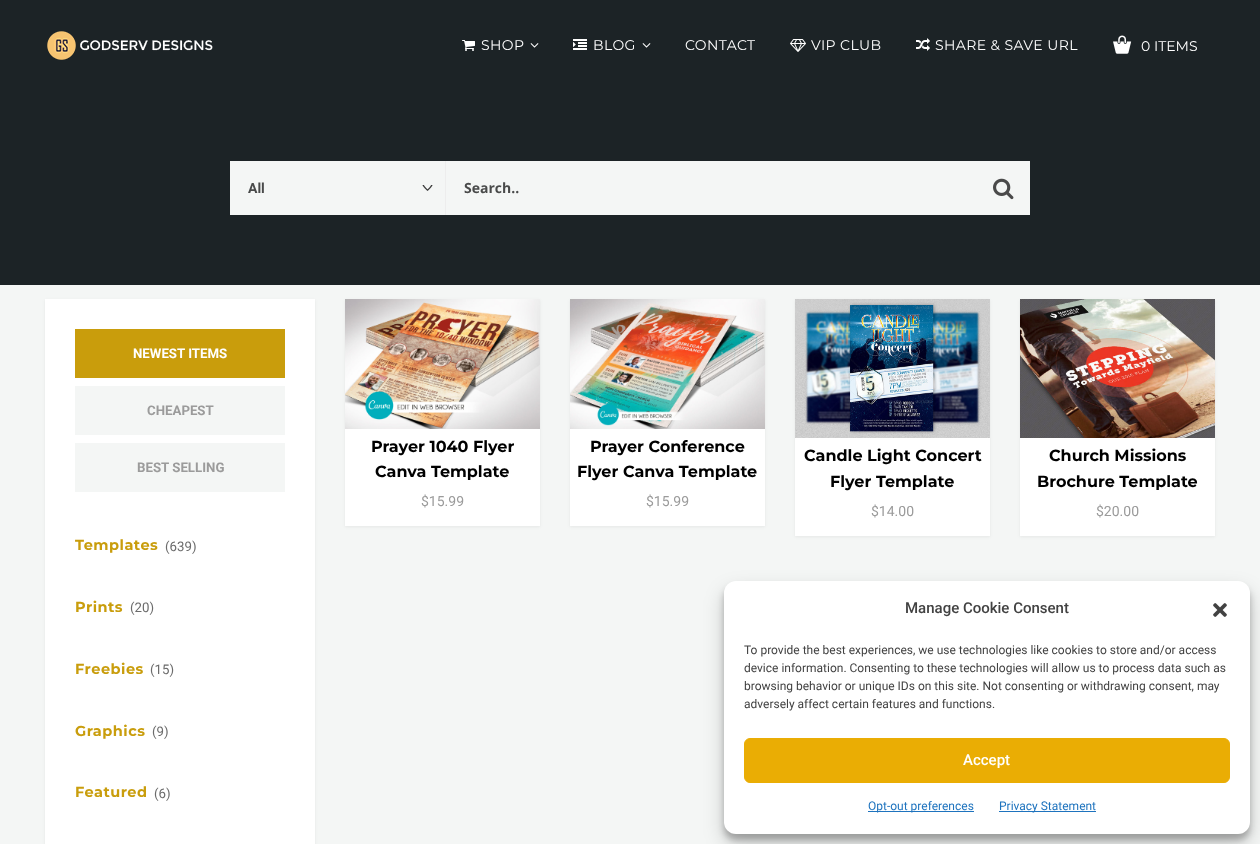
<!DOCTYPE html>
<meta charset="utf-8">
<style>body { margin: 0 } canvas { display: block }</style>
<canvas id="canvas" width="1260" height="844"></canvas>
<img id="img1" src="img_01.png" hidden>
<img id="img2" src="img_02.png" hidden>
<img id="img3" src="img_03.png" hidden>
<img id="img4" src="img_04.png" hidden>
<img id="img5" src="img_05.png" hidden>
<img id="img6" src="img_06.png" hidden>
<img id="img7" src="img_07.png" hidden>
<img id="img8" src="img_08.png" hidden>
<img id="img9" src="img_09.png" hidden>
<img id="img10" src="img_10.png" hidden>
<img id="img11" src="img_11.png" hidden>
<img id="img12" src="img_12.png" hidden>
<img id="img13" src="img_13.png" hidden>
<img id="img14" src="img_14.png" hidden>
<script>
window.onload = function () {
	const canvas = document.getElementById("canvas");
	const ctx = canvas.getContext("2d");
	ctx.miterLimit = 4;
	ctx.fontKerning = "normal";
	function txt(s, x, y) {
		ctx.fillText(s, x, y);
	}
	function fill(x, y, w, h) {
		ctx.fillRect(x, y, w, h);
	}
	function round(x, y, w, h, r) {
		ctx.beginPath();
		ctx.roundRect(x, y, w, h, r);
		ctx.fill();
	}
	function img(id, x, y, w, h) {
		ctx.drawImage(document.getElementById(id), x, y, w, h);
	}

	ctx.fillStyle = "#F4F6F5";
	fill(0, 0, 1260, 844);
	ctx.fillStyle = "#1C2326";
	fill(0, 0, 1260, 285);
	img("img1", 47, 31, 166, 29);
	img("img2", 462, 40, 13, 11);
	img("img3", 530, 43, 9, 5);
	img("img4", 573, 39, 14, 11);
	img("img3", 642, 43, 9, 5);
	img("img5", 790, 39, 16, 13);
	img("img6", 916, 38, 14, 13);
	img("img7", 1113, 35, 19, 19);
	ctx.fillStyle = "#F4F6F5";
	fill(230, 161, 215, 54);
	ctx.fillStyle = "#EDEDED";
	fill(445, 161, 1, 54);
	img("img8", 422, 185, 11, 6);
	ctx.fillStyle = "#F4F6F5";
	fill(446, 161, 584, 54);
	img("img9", 993, 178, 21, 22);
	ctx.fillStyle = "rgba(0, 0, 0, 0.06)";
	ctx.filter = "blur(1.5px)";
	ctx.beginPath();
	ctx.rect(45, 300, 270, 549);
	ctx.fill();
	ctx.filter = "none";
	ctx.fillStyle = "#FFFFFF";
	fill(45, 299, 270, 545);
	ctx.fillStyle = "#C99D0C";
	fill(75, 329, 210, 49);
	ctx.fillStyle = "#F4F6F5";
	fill(75, 386, 210, 49);
	fill(75, 443, 210, 49);
	ctx.fillStyle = "rgba(0, 0, 0, 0.06)";
	ctx.filter = "blur(1.5px)";
	ctx.beginPath();
	ctx.rect(345, 300, 195, 227);
	ctx.fill();
	ctx.filter = "none";
	ctx.fillStyle = "#FFFFFF";
	fill(345, 429, 195, 97);
	img("img10", 345, 299, 195, 130);
	ctx.fillStyle = "rgba(0, 0, 0, 0.06)";
	ctx.filter = "blur(1.5px)";
	ctx.beginPath();
	ctx.rect(570, 300, 195, 227);
	ctx.fill();
	ctx.filter = "none";
	ctx.fillStyle = "#FFFFFF";
	fill(570, 429, 195, 97);
	img("img11", 570, 299, 195, 130);
	ctx.fillStyle = "rgba(0, 0, 0, 0.06)";
	ctx.filter = "blur(1.5px)";
	ctx.beginPath();
	ctx.rect(795, 300, 195, 237);
	ctx.fill();
	ctx.filter = "none";
	ctx.fillStyle = "#FFFFFF";
	fill(795, 438, 195, 98);
	img("img12", 795, 299, 195, 139);
	ctx.fillStyle = "rgba(0, 0, 0, 0.06)";
	ctx.filter = "blur(1.5px)";
	ctx.beginPath();
	ctx.rect(1020, 300, 195, 237);
	ctx.fill();
	ctx.filter = "none";
	ctx.fillStyle = "#FFFFFF";
	fill(1020, 438, 195, 98);
	img("img13", 1020, 299, 195, 139);
	ctx.fillStyle = "rgba(0, 0, 0, 0.23)";
	ctx.filter = "blur(3px)";
	ctx.beginPath();
	ctx.roundRect(724, 587, 526, 253, 12);
	ctx.fill();
	ctx.filter = "none";
	ctx.fillStyle = "rgba(0, 0, 0, 0.19)";
	ctx.filter = "blur(10px)";
	ctx.beginPath();
	ctx.roundRect(724, 591, 526, 253, 12);
	ctx.fill();
	ctx.filter = "none";
	ctx.fillStyle = "#FFFFFF";
	round(724, 581, 526, 253, 12);
	img("img14", 1213, 603, 14, 14);
	ctx.fillStyle = "#EAAD04";
	ctx.beginPath();
	ctx.roundRect(744.5, 738.5, 485, 44, 5.5);
	ctx.fill();
	ctx.strokeStyle = "#EAAD04";
	ctx.stroke();
	ctx.fillStyle = "#1E73BE";
	fill(868, 811, 106, 1);
	fill(999, 811, 97, 1);
	ctx.letterSpacing = "0.4px";
	ctx.font = "14px Montserrat";
	ctx.fillStyle = "#FFFFFF";
	txt("SHOP", 481, 50);
	txt("BLOG", 593, 50);
	txt("CONTACT", 685, 50);
	txt("VIP CLUB", 811, 50);
	txt("SHARE & SAVE URL", 935, 50);
	ctx.letterSpacing = "0px";
	txt("0 ITEMS", 1141, 51);
	ctx.font = "bold 14px Roboto";
	ctx.fillStyle = "#494A4A";
	txt("All", 248, 193);
	ctx.font = "bold 14px Open Sans";
	txt("Search..", 464, 193);
	ctx.font = "bold 13.25px Roboto";
	ctx.fillStyle = "#FFFFFF";
	txt("NEWEST ITEMS", 133, 358);
	ctx.fillStyle = "#9B9B9B";
	txt("CHEAPEST", 147, 415);
	txt("BEST SELLING", 137, 472);
	ctx.letterSpacing = "0.5px";
	ctx.font = "bold 14.5px Montserrat";
	ctx.fillStyle = "#C99D0C";
	txt("Templates", 75, 550);
	ctx.letterSpacing = "0px";
	ctx.font = "13.25px Roboto";
	ctx.fillStyle = "#6B6B6B";
	txt("(639)", 165, 551);
	ctx.letterSpacing = "0.5px";
	ctx.font = "bold 14.5px Montserrat";
	ctx.fillStyle = "#C99D0C";
	txt("Prints", 75, 612);
	ctx.letterSpacing = "0px";
	ctx.font = "13.25px Roboto";
	ctx.fillStyle = "#6B6B6B";
	txt("(20)", 130, 612);
	ctx.letterSpacing = "0.5px";
	ctx.font = "bold 14.5px Montserrat";
	ctx.fillStyle = "#C99D0C";
	txt("Freebies", 75, 674);
	ctx.letterSpacing = "0px";
	ctx.font = "13.25px Roboto";
	ctx.fillStyle = "#6B6B6B";
	txt("(15)", 150, 674);
	ctx.letterSpacing = "0.5px";
	ctx.font = "bold 14.5px Montserrat";
	ctx.fillStyle = "#C99D0C";
	txt("Graphics", 75, 736);
	ctx.letterSpacing = "0px";
	ctx.font = "13.25px Roboto";
	ctx.fillStyle = "#6B6B6B";
	txt("(9)", 152, 736);
	ctx.letterSpacing = "0.5px";
	ctx.font = "bold 14.5px Montserrat";
	ctx.fillStyle = "#C99D0C";
	txt("Featured", 75, 797);
	ctx.letterSpacing = "0px";
	ctx.font = "13.25px Roboto";
	ctx.fillStyle = "#6B6B6B";
	txt("(6)", 154, 798);
	ctx.font = "bold 16px Montserrat";
	ctx.fillStyle = "#000000";
	txt("Prayer 1040 Flyer", 371, 452);
	txt("Canva Template", 375, 477);
	ctx.font = "14px Roboto";
	ctx.fillStyle = "#9B9B9B";
	txt("$15.99", 421, 506);
	ctx.font = "bold 16px Montserrat";
	ctx.fillStyle = "#000000";
	txt("Prayer Conference", 590, 452);
	txt("Flyer Canva Template", 577, 477);
	ctx.font = "14px Roboto";
	ctx.fillStyle = "#9B9B9B";
	txt("$15.99", 646, 506);
	ctx.font = "bold 16px Montserrat";
	ctx.fillStyle = "#000000";
	txt("Candle Light Concert", 804, 461);
	txt("Flyer Template", 830, 487);
	ctx.font = "14px Roboto";
	ctx.fillStyle = "#9B9B9B";
	txt("$14.00", 871, 516);
	ctx.font = "bold 16px Montserrat";
	ctx.fillStyle = "#000000";
	txt("Church Missions", 1049, 461);
	txt("Brochure Template", 1037, 487);
	ctx.font = "14px Roboto";
	ctx.fillStyle = "#9B9B9B";
	txt("$20.00", 1096, 516);
	ctx.font = "500 15px Roboto";
	ctx.fillStyle = "#424242";
	txt("Manage Cookie Consent", 905, 613);
	ctx.font = "12px Roboto";
	txt("To provide the best experiences, we use technologies like cookies to store and/or access", 744, 654);
	txt("device information. Consenting to these technologies will allow us to process data such as", 744, 672);
	txt("browsing behavior or unique IDs on this site. Not consenting or withdrawing consent, may", 744, 690);
	txt("adversely affect certain features and functions.", 744, 708);
	ctx.font = "500 15px Roboto";
	ctx.fillStyle = "#FFFFFF";
	txt("Accept", 963, 765);
	ctx.font = "12px Roboto";
	ctx.fillStyle = "#1E73BE";
	txt("Opt-out preferences", 868, 810);
	txt("Privacy Statement", 999, 810);
};
</script>
